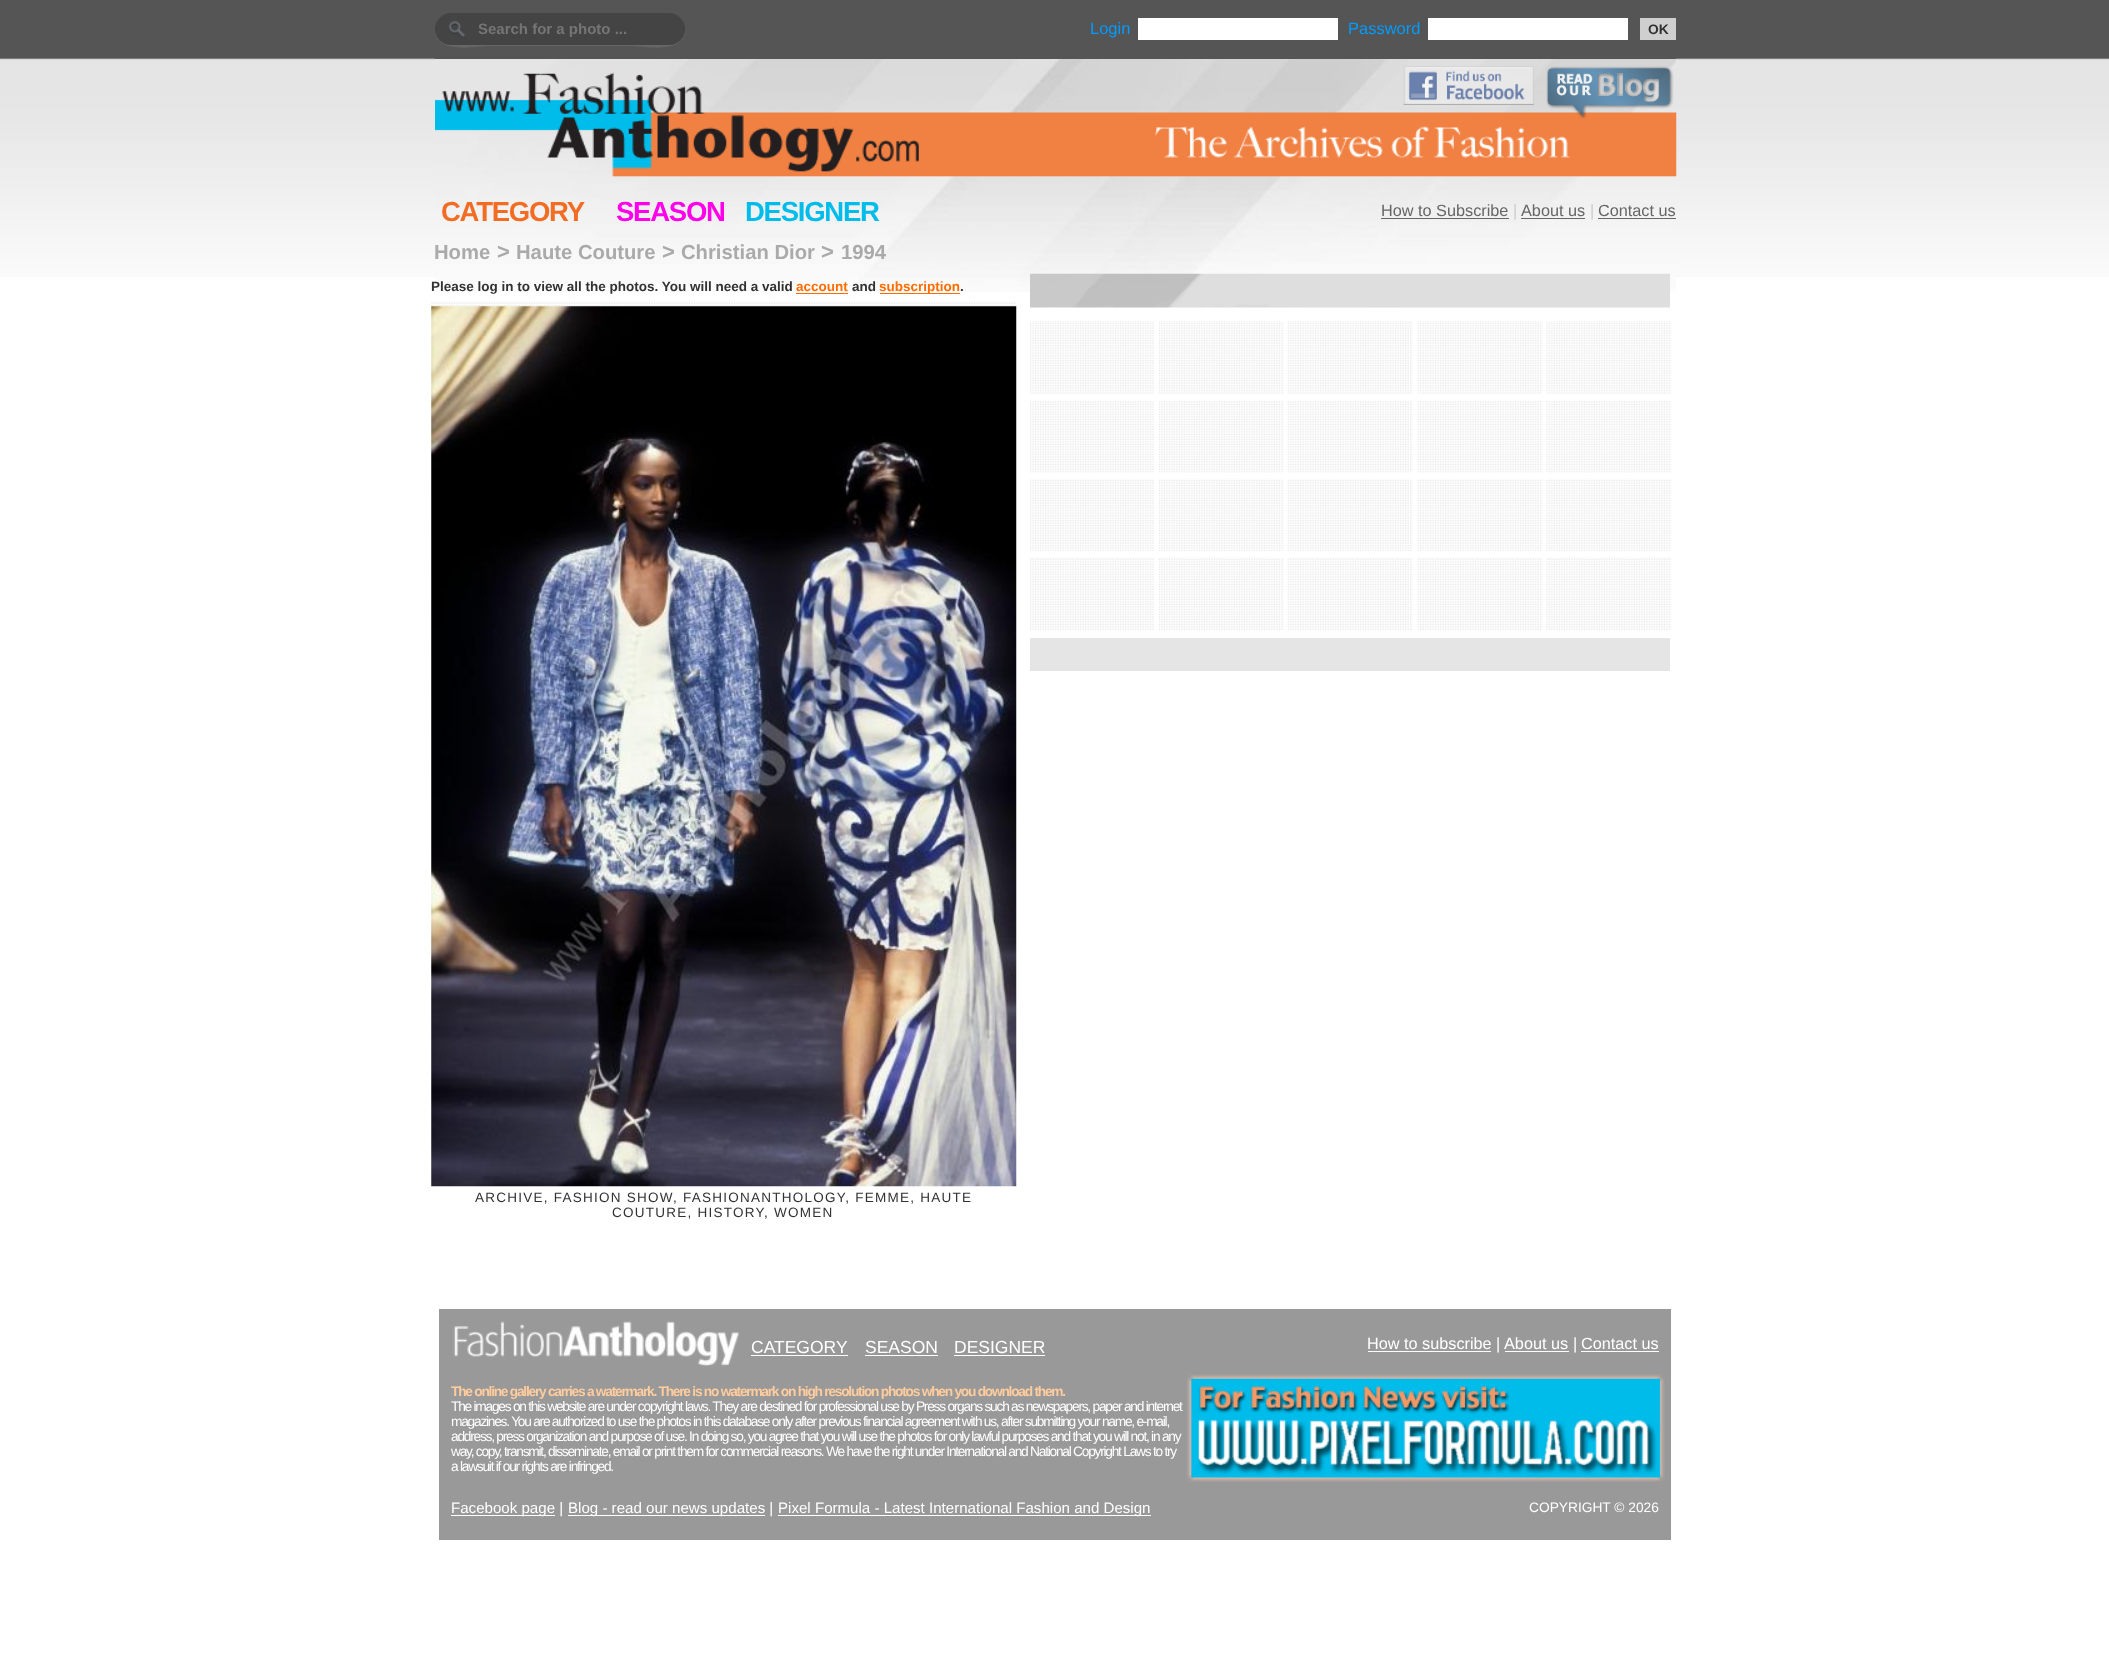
<!DOCTYPE html>
<meta charset="utf-8">
<style>body { margin: 0 } canvas { display: block }</style>
<canvas id="canvas" width="2109" height="1664"></canvas>
<img id="img1" src="img_01.png" hidden>
<img id="img2" src="img_02.png" hidden>
<img id="img3" src="img_03.png" hidden>
<img id="img4" src="img_06.png" hidden>
<img id="img5" src="img_04.png" hidden>
<img id="img6" src="img_05.png" hidden>
<img id="img7" src="img_07.png" hidden>
<img id="img8" src="img_08.png" hidden>
<img id="img9" src="img_09.png" hidden>
<img id="img10" src="img_10.png" hidden>
<img id="img11" src="img_11.png" hidden>
<img id="img12" src="img_12.png" hidden>
<img id="img13" src="img_13.png" hidden>
<img id="img14" src="img_14.png" hidden>
<img id="img15" src="img_15.png" hidden>
<img id="img16" src="img_16.png" hidden>
<img id="img17" src="img_17.png" hidden>
<img id="img18" src="img_18.png" hidden>
<img id="img19" src="img_19.png" hidden>
<img id="img20" src="img_20.png" hidden>
<img id="img21" src="img_21.png" hidden>
<img id="img22" src="img_22.png" hidden>
<img id="img23" src="img_23.png" hidden>
<img id="img24" src="img_24.png" hidden>
<img id="img25" src="img_25.png" hidden>
<img id="img26" src="img_26.png" hidden>
<img id="img27" src="img_27.png" hidden>
<script>
window.onload = function () {
	const canvas = document.getElementById("canvas");
	const ctx = canvas.getContext("2d");
	ctx.miterLimit = 4;
	ctx.fontKerning = "normal";
	function txt(s, x, y) {
		ctx.fillText(s, x, y);
	}
	function fill(x, y, w, h) {
		ctx.fillRect(x, y, w, h);
	}
	function round(x, y, w, h, r) {
		ctx.beginPath();
		ctx.roundRect(x, y, w, h, r);
		ctx.fill();
	}
	function img(id, x, y, w, h) {
		ctx.drawImage(document.getElementById(id), x, y, w, h);
	}

	ctx.fillStyle = "#FFFFFF";
	fill(0, 0, 2109, 1664);
	img("img1", 0, 0, 2109, 277);
	img("img2", 435, 59, 1241, 233);
	ctx.fillStyle = "#555555";
	fill(435, 58, 1241, 1);
	ctx.fillStyle = "#666666";
	ctx.beginPath();
	ctx.moveTo(435, 29);
	ctx.bezierCurveTo(434, 55, 477, 46, 487, 46);
	ctx.lineTo(633, 46);
	ctx.bezierCurveTo(643, 46, 686, 55, 685, 29);
	ctx.bezierCurveTo(685, 38, 678, 45, 669, 45);
	ctx.lineTo(451, 45);
	ctx.bezierCurveTo(442, 45, 435, 38, 435, 29);
	ctx.closePath();
	ctx.fill();
	ctx.fillStyle = "#444444";
	round(435, 13, 250, 32, 16);
	img("img3", 448, 21, 17, 17);
	ctx.fillStyle = "#FFFFFF";
	fill(1138, 18, 200, 22);
	fill(1428, 18, 200, 22);
	ctx.fillStyle = "#CFCFCF";
	fill(1640, 18, 36, 22);
	img("img4", 435, 72, 1242, 105);
	img("img5", 1403, 66, 131, 39);
	img("img6", 1546, 66, 128, 53);
	ctx.fillStyle = "#666666";
	fill(1381, 218, 128, 1);
	fill(1521, 218, 64, 1);
	fill(1598, 218, 78, 1);
	ctx.fillStyle = "#FF6D02";
	fill(796, 293, 52, 1);
	fill(880, 293, 80, 1);
	img("img7", 431, 301, 586, 885);
	img("img8", 431, 306, 586, 881);
	img("img9", 1030, 273, 640, 35);
	img("img10", 1030, 321, 124, 73);
	img("img11", 1159, 321, 125, 73);
	img("img12", 1287, 321, 126, 73);
	img("img12", 1417, 321, 126, 73);
	img("img13", 1546, 321, 126, 73);
	img("img14", 1030, 401, 124, 72);
	img("img15", 1159, 401, 125, 72);
	img("img16", 1287, 401, 126, 72);
	img("img16", 1417, 401, 126, 72);
	img("img17", 1546, 401, 126, 72);
	img("img18", 1030, 478, 124, 73);
	img("img19", 1159, 478, 125, 73);
	img("img20", 1287, 478, 126, 73);
	img("img20", 1417, 478, 126, 73);
	img("img21", 1546, 478, 126, 73);
	img("img22", 1030, 557, 124, 73);
	img("img23", 1159, 557, 125, 73);
	img("img24", 1287, 557, 126, 73);
	img("img24", 1417, 557, 126, 73);
	img("img25", 1546, 557, 126, 73);
	ctx.fillStyle = "#E5E5E5";
	fill(1030, 638, 640, 33);
	ctx.fillStyle = "#999999";
	fill(439, 1309, 1232, 231);
	img("img26", 453, 1321, 286, 45);
	ctx.fillStyle = "#FFFFFF";
	fill(751, 1355, 97, 1);
	fill(865, 1355, 73, 1);
	fill(954, 1355, 91, 1);
	fill(1368, 1351, 123, 1);
	fill(1505, 1351, 64, 1);
	fill(1581, 1351, 78, 1);
	img("img27", 1186, 1374, 479, 108);
	fill(451, 1515, 104, 1);
	fill(568, 1515, 197, 1);
	fill(778, 1515, 373, 1);
	ctx.font = "bold 15px Liberation Sans";
	ctx.fillStyle = "#757575";
	txt("Search for a photo ...", 478, 34);
	ctx.font = "16.5px Liberation Sans";
	ctx.fillStyle = "#009CFF";
	txt("Login", 1090, 34);
	txt("Password", 1348, 34);
	ctx.font = "bold 13.75px Liberation Sans";
	ctx.fillStyle = "#323232";
	txt("OK", 1648, 34);
	ctx.letterSpacing = "-1.25px";
	ctx.font = "bold 27.5px Liberation Sans";
	ctx.fillStyle = "#F26D23";
	txt("CATEGORY", 441, 221);
	ctx.fillStyle = "#FF00EB";
	txt("SEASON", 616, 221);
	ctx.fillStyle = "#00BCEB";
	txt("DESIGNER", 745, 221);
	ctx.letterSpacing = "0px";
	ctx.font = "16.25px Liberation Sans";
	ctx.fillStyle = "#666666";
	txt("How to Subscribe", 1381, 216);
	ctx.fillStyle = "#CCCCCC";
	txt("|", 1513, 216);
	ctx.fillStyle = "#666666";
	txt("About us", 1521, 216);
	ctx.fillStyle = "#CCCCCC";
	txt("|", 1590, 216);
	ctx.fillStyle = "#666666";
	txt("Contact us", 1598, 216);
	ctx.font = "bold 20.25px Liberation Sans";
	ctx.fillStyle = "#AAAAAA";
	txt("Home", 434, 259);
	ctx.font = "bold 22px Liberation Sans";
	txt(">", 497, 259);
	ctx.font = "bold 20.25px Liberation Sans";
	txt("Haute Couture", 516, 259);
	ctx.font = "bold 22px Liberation Sans";
	txt(">", 662, 259);
	ctx.font = "bold 20.25px Liberation Sans";
	txt("Christian Dior", 681, 259);
	ctx.font = "bold 22px Liberation Sans";
	txt(">", 821, 259);
	ctx.font = "bold 20.25px Liberation Sans";
	txt("1994", 841, 259);
	ctx.font = "bold 13.5px Liberation Sans";
	ctx.fillStyle = "#323232";
	txt("Please log in to view all the photos. You will need a valid", 431, 291);
	ctx.fillStyle = "#FF6D02";
	txt("account", 796, 291);
	ctx.fillStyle = "#323232";
	txt("and", 852, 291);
	ctx.fillStyle = "#FF6D02";
	txt("subscription", 879, 291);
	ctx.fillStyle = "#323232";
	txt(".", 960, 291);
	ctx.letterSpacing = "1.25px";
	ctx.font = "13.5px Liberation Sans";
	txt("ARCHIVE, FASHION SHOW, FASHIONANTHOLOGY, FEMME, HAUTE", 475, 1202);
	txt("COUTURE, HISTORY, WOMEN", 612, 1217);
	ctx.letterSpacing = "0px";
	ctx.font = "17.5px Liberation Sans";
	ctx.fillStyle = "#FFFFFF";
	txt("CATEGORY", 751, 1353);
	txt("SEASON", 865, 1353);
	txt("DESIGNER", 954, 1353);
	ctx.font = "16.25px Liberation Sans";
	txt("How to subscribe", 1367, 1349);
	txt("|", 1496, 1349);
	txt("About us", 1504, 1349);
	txt("|", 1573, 1349);
	txt("Contact us", 1581, 1349);
	ctx.letterSpacing = "-1.25px";
	ctx.font = "bold 13.75px Liberation Sans";
	ctx.fillStyle = "#FFCC9E";
	txt("The online gallery carries a watermark. There is no watermark on high resolution photos when you download them.", 451, 1396);
	ctx.font = "13.75px Liberation Sans";
	ctx.fillStyle = "#FFFFFF";
	txt("The images on this website are under copyright laws. They are destined for professional use by Press organs such as newspapers, paper and internet", 451, 1411);
	txt("magazines. You are authorized to use the photos in this database only after previous financial agreement with us, after submitting your name, e-mail,", 451, 1426);
	txt("address, press organization and purpose of use. In doing so, you agree that you will use the photos for only lawful purposes and that you will not, in any", 451, 1441);
	txt("way, copy, transmit, disseminate, email or print them for commercial reasons. We have the right under International and National Copyright Laws to try", 451, 1456);
	txt("a lawsuit if our rights are infringed.", 451, 1471);
	ctx.letterSpacing = "0px";
	ctx.font = "15.1px Liberation Sans";
	txt("Facebook page |", 451, 1513);
	txt("Blog - read our news updates |", 568, 1513);
	txt("Pixel Formula - Latest International Fashion and Design", 778, 1513);
	ctx.font = "13.75px Liberation Sans";
	txt("COPYRIGHT © 2026", 1529, 1512);
};
</script>
